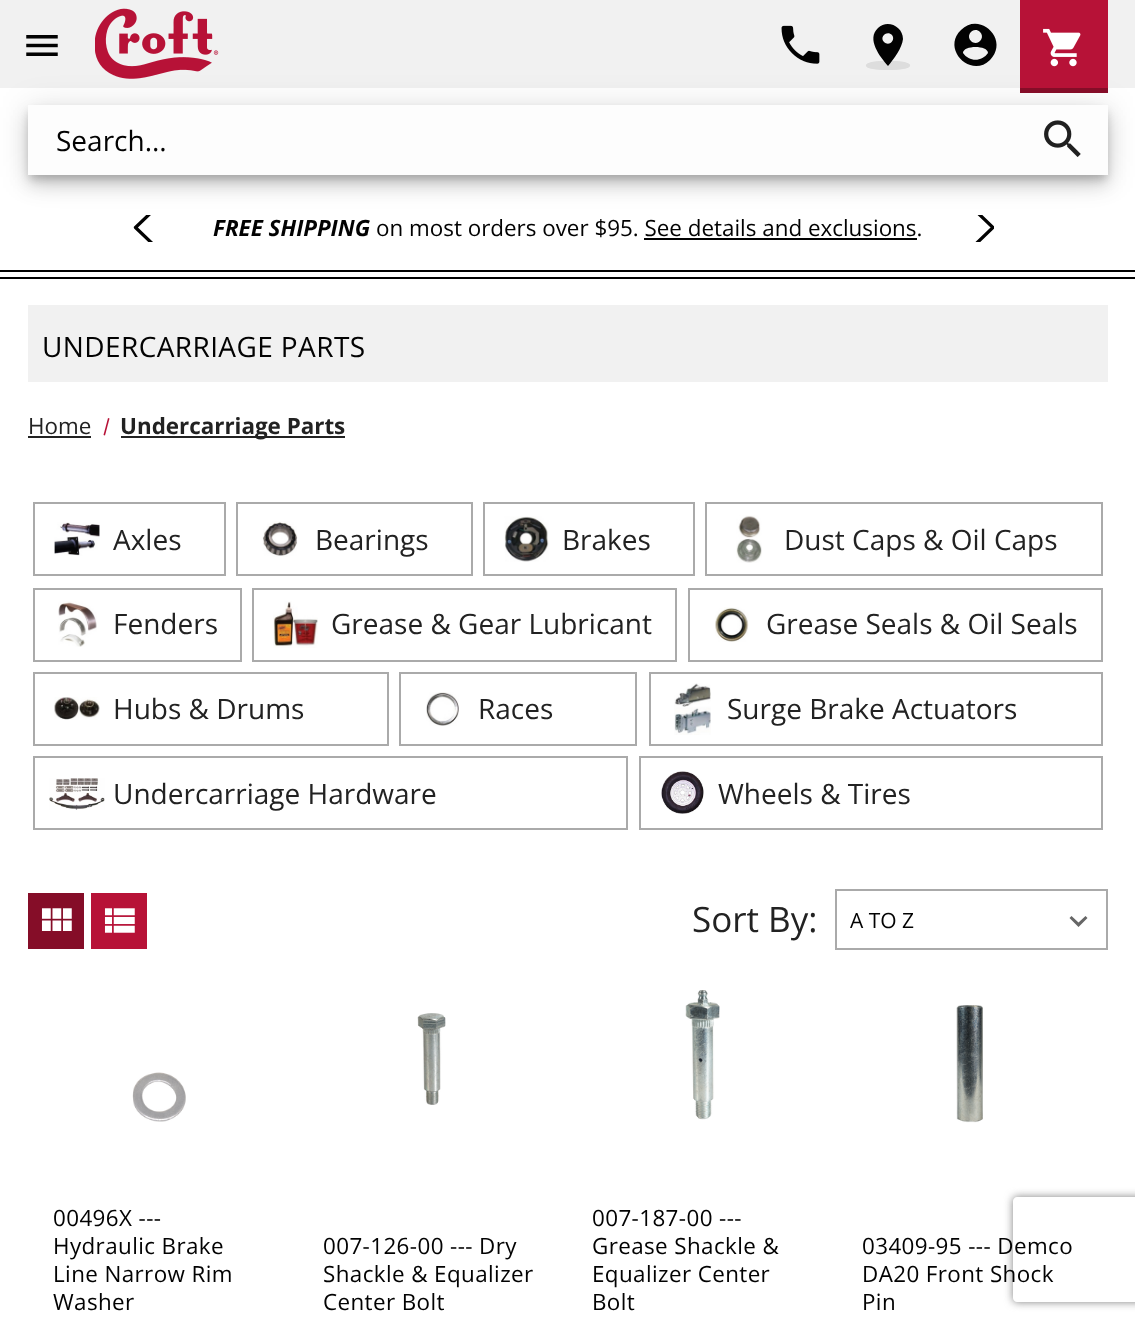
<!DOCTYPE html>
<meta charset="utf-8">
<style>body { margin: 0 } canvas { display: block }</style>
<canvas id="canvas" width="1135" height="1326"></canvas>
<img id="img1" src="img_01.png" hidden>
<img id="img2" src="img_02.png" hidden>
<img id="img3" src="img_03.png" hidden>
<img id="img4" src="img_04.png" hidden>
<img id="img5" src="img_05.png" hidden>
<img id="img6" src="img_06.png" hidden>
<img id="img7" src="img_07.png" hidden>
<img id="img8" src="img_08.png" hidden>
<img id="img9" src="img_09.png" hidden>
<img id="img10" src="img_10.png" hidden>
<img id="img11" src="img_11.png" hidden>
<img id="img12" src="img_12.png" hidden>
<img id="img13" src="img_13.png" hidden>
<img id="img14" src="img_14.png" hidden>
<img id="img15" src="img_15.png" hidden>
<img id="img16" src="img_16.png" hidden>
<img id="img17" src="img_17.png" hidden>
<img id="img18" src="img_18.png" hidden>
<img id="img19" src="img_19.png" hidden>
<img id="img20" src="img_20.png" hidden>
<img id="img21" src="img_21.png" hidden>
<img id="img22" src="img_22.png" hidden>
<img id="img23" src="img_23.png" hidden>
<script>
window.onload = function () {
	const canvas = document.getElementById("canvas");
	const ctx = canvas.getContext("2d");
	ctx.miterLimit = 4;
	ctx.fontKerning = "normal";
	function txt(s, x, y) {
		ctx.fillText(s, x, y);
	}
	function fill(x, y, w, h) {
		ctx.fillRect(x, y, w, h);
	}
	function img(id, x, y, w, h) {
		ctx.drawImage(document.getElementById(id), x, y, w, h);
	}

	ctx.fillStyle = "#FFFFFF";
	fill(0, 0, 1135, 1326);
	ctx.fillStyle = "#F1F1F1";
	fill(0, 0, 1135, 88);
	img("img1", 26, 35, 32, 21);
	img("img2", 95, 8, 124, 71);
	img("img3", 781, 25, 39, 39);
	ctx.fillStyle = "#DDDDDD";
	ctx.beginPath();
	ctx.ellipse(888, 65.5, 22, 4.5, 0, 0, Math.PI * 2);
	ctx.fill();
	ctx.beginPath();
	ctx.moveTo(888, 62);
	ctx.bezierCurveTo(899.5, 62, 909, 63.5, 909, 65.5);
	ctx.bezierCurveTo(909, 67.5, 899.5, 69, 888, 69);
	ctx.bezierCurveTo(876.5, 69, 867, 67.5, 867, 65.5);
	ctx.bezierCurveTo(867, 63.5, 876.5, 62, 888, 62);
	ctx.closePath();
	ctx.strokeStyle = "#DDDDDD";
	ctx.lineWidth = 1.8;
	ctx.stroke();
	ctx.fillStyle = "#020202";
	ctx.beginPath();
	ctx.moveTo(884, 42);
	ctx.bezierCurveTo(889, 47, 896, 40, 892, 35);
	ctx.bezierCurveTo(887, 30, 879, 37, 884, 42);
	ctx.closePath();
	ctx.moveTo(878, 28);
	ctx.bezierCurveTo(887, 19, 903, 26, 903, 39);
	ctx.bezierCurveTo(902, 48, 894, 59, 888, 66);
	ctx.bezierCurveTo(880, 57, 866, 39, 878, 28);
	ctx.closePath();
	ctx.fill();
	ctx.beginPath();
	ctx.moveTo(963, 53);
	ctx.bezierCurveTo(969, 62, 982, 62, 988, 53);
	ctx.bezierCurveTo(988, 45, 963, 45, 963, 53);
	ctx.closePath();
	ctx.moveTo(980, 32);
	ctx.bezierCurveTo(974, 26, 965, 35, 971, 41);
	ctx.bezierCurveTo(977, 47, 986, 38, 980, 32);
	ctx.closePath();
	ctx.moveTo(961, 30);
	ctx.bezierCurveTo(980, 11, 1010, 40, 990, 60);
	ctx.bezierCurveTo(971, 79, 941, 49, 961, 30);
	ctx.closePath();
	ctx.fill();
	ctx.save();
	ctx.beginPath();
	ctx.rect(133, 215, 39, 27);
	ctx.clip();
	ctx.beginPath();
	ctx.moveTo(170.5, 194);
	ctx.lineTo(135.5, 227.5);
	ctx.lineTo(170.5, 261);
	ctx.strokeStyle = "#020202";
	ctx.lineWidth = 3.3;
	ctx.lineCap = "round";
	ctx.lineJoin = "round";
	ctx.stroke();
	ctx.restore();
	ctx.save();
	ctx.beginPath();
	ctx.rect(956, 215, 38, 27);
	ctx.clip();
	ctx.beginPath();
	ctx.moveTo(958, 194);
	ctx.lineTo(993, 227.5);
	ctx.lineTo(958, 261);
	ctx.strokeStyle = "#020202";
	ctx.lineWidth = 3.3;
	ctx.lineCap = "round";
	ctx.lineJoin = "round";
	ctx.stroke();
	ctx.restore();
	ctx.fillStyle = "rgba(0, 0, 0, 0.12)";
	ctx.filter = "blur(16px)";
	ctx.beginPath();
	ctx.rect(28, 107, 1080, 70);
	ctx.fill();
	ctx.filter = "none";
	ctx.fillStyle = "#B71237";
	fill(1020, 0, 88, 88);
	ctx.fillStyle = "rgba(0, 0, 0, 0.14)";
	ctx.filter = "blur(9px)";
	ctx.beginPath();
	ctx.rect(28, 116, 1080, 70);
	ctx.fill();
	ctx.filter = "none";
	ctx.fillStyle = "#850D28";
	fill(1020, 88, 88, 5);
	img("img4", 1043, 28, 38, 39);
	ctx.fillStyle = "rgba(0, 0, 0, 0.2)";
	ctx.filter = "blur(4.5px)";
	ctx.beginPath();
	ctx.rect(30, 112, 1076, 67);
	ctx.fill();
	ctx.filter = "none";
	ctx.fillStyle = "#FDFDFD";
	fill(28, 105, 1080, 70);
	img("img5", 1044, 120, 37, 37);
	ctx.fillStyle = "#020202";
	fill(0, 270, 1135, 2);
	fill(644, 238, 273, 2);
	fill(0, 277, 1135, 2);
	ctx.fillStyle = "#F1F1F1";
	fill(28, 305, 1080, 77);
	ctx.fillStyle = "#222222";
	fill(28, 436, 63, 2);
	ctx.fillStyle = "#B71237";
	ctx.beginPath();
	ctx.moveTo(108, 418);
	ctx.lineTo(109.5, 418.5);
	ctx.lineTo(105, 435.5);
	ctx.lineTo(103.5, 435);
	ctx.closePath();
	ctx.fill();
	ctx.fillStyle = "#222222";
	fill(121, 436, 224, 2);
	ctx.strokeStyle = "#AAAAAA";
	ctx.lineWidth = 2;
	ctx.strokeRect(34, 503, 191, 72);
	img("img6", 54, 522, 46, 34);
	ctx.strokeRect(237, 503, 235, 72);
	img("img7", 262, 521, 36, 36);
	ctx.strokeRect(484, 503, 210, 72);
	img("img8", 504, 516, 45, 46);
	ctx.strokeRect(706, 503, 396, 72);
	img("img9", 736, 515, 26, 48);
	ctx.strokeRect(34, 589, 207, 72);
	img("img10", 58, 601, 39, 46);
	ctx.strokeRect(253, 589, 423, 72);
	img("img11", 273, 601, 45, 47);
	ctx.strokeRect(689, 589, 413, 72);
	img("img12", 715, 607, 34, 35);
	ctx.strokeRect(34, 673, 354, 72);
	img("img13", 54, 697, 46, 23);
	ctx.strokeRect(400, 673, 236, 72);
	img("img14", 426, 692, 33, 34);
	ctx.strokeRect(650, 673, 452, 72);
	img("img15", 674, 683, 37, 52);
	ctx.strokeRect(34, 757, 593, 72);
	img("img16", 49, 778, 56, 32);
	ctx.strokeRect(640, 757, 462, 72);
	img("img17", 661, 771, 43, 43);
	ctx.fillStyle = "#850D28";
	fill(28, 893, 56, 56);
	img("img18", 41, 908, 31, 23);
	ctx.fillStyle = "#B71237";
	fill(91, 893, 56, 56);
	img("img19", 104, 908, 31, 25);
	ctx.fillStyle = "#666666";
	ctx.beginPath();
	ctx.moveTo(1085.5, 916);
	ctx.lineTo(1078.5, 922.5);
	ctx.lineTo(1071.5, 916);
	ctx.lineTo(1069.5, 918);
	ctx.lineTo(1078.5, 927);
	ctx.lineTo(1087.5, 918);
	ctx.closePath();
	ctx.fill();
	ctx.strokeRect(836, 890, 271, 59);
	img("img20", 132, 1072, 54, 50);
	img("img21", 417, 1013, 29, 92);
	img("img22", 685, 990, 35, 130);
	img("img23", 956, 1005, 27, 118);
	ctx.save();
	ctx.beginPath();
	ctx.moveTo(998, 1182);
	ctx.lineTo(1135, 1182);
	ctx.lineTo(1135, 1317);
	ctx.lineTo(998, 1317);
	ctx.closePath();
	ctx.moveTo(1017, 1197);
	ctx.lineTo(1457, 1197);
	ctx.bezierCurveTo(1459, 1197, 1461, 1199, 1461, 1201);
	ctx.lineTo(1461, 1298);
	ctx.bezierCurveTo(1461, 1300, 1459, 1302, 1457, 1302);
	ctx.lineTo(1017, 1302);
	ctx.bezierCurveTo(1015, 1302, 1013, 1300, 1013, 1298);
	ctx.lineTo(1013, 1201);
	ctx.bezierCurveTo(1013, 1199, 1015, 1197, 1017, 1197);
	ctx.closePath();
	ctx.clip("evenodd");
	ctx.fillStyle = "#808080";
	ctx.filter = "blur(4.5px)";
	ctx.beginPath();
	ctx.roundRect(1013, 1197, 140, 105, 4);
	ctx.fill();
	ctx.filter = "none";
	ctx.restore();
	ctx.font = "28px Open Sans";
	ctx.fillStyle = "#020202";
	txt("Search...", 56, 151);
	ctx.font = "italic bold 22.4px Open Sans";
	txt("FREE SHIPPING", 213, 236);
	ctx.font = "22.4px Open Sans";
	txt("on most orders over $95. See details and exclusions.", 376, 236);
	ctx.letterSpacing = "0.4px";
	ctx.font = "28px Open Sans";
	txt("UNDERCARRIAGE PARTS", 42, 357);
	ctx.letterSpacing = "0px";
	ctx.font = "22.4px Open Sans";
	ctx.fillStyle = "#222222";
	txt("Home", 28, 434);
	ctx.font = "bold 22.4px Open Sans";
	txt("Undercarriage Parts", 120, 434);
	ctx.font = "28px Open Sans";
	txt("Axles", 113, 550);
	txt("Bearings", 315, 550);
	txt("Brakes", 562, 550);
	txt("Dust Caps & Oil Caps", 784, 550);
	txt("Fenders", 113, 634);
	txt("Grease & Gear Lubricant", 331, 634);
	txt("Grease Seals & Oil Seals", 766, 634);
	txt("Hubs & Drums", 113, 719);
	txt("Races", 478, 719);
	txt("Surge Brake Actuators", 727, 719);
	txt("Undercarriage Hardware", 113, 804);
	txt("Wheels & Tires", 718, 804);
	ctx.font = "35px Open Sans";
	txt("Sort By:", 692, 932);
	ctx.font = "21px Open Sans";
	ctx.fillStyle = "#020202";
	txt("A TO Z", 850, 928);
	ctx.letterSpacing = "0.4px";
	ctx.font = "22.4px Open Sans";
	txt("00496X ---", 53, 1226);
	txt("Hydraulic Brake", 53, 1254);
	txt("Line Narrow Rim", 53, 1282);
	txt("Washer", 53, 1310);
	txt("007-126-00 --- Dry", 323, 1254);
	txt("Shackle & Equalizer", 323, 1282);
	txt("Center Bolt", 323, 1310);
	txt("007-187-00 ---", 592, 1226);
	txt("Grease Shackle &", 592, 1254);
	txt("Equalizer Center", 592, 1282);
	txt("Bolt", 592, 1310);
	txt("03409-95 --- Demco", 862, 1254);
	txt("DA20 Front Shock", 862, 1282);
	txt("Pin", 862, 1310);
};
</script>
